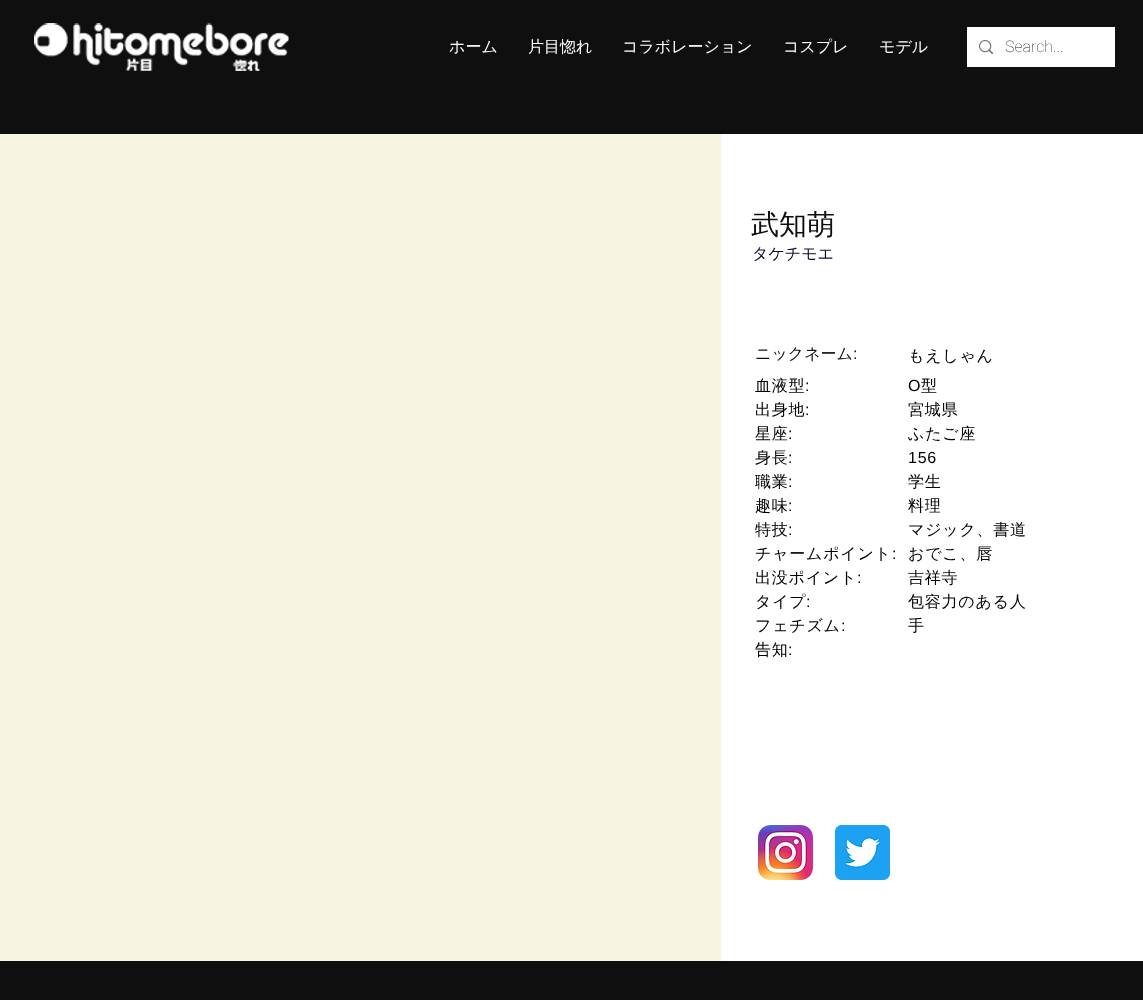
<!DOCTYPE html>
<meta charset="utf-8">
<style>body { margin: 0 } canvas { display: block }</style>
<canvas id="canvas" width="1143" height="1000"></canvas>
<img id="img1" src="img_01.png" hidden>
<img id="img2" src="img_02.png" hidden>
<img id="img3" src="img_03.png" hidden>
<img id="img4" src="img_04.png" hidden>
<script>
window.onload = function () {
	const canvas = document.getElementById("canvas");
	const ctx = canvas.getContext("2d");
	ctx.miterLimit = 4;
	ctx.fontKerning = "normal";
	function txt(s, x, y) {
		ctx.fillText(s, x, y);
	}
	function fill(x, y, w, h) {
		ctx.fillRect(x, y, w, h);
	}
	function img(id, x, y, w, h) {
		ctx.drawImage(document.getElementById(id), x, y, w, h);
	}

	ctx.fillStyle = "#0F0F0F";
	fill(0, 0, 1143, 1000);
	img("img1", 34, 23, 255, 48);
	ctx.fillStyle = "#FFFFFF";
	fill(967, 27, 148, 40);
	img("img2", 979, 40, 14, 14);
	ctx.fillStyle = "#F7F5E1";
	fill(0, 134, 721, 827);
	ctx.fillStyle = "#FFFFFF";
	fill(721, 134, 422, 827);
	img("img3", 758, 825, 55, 55);
	img("img4", 835, 825, 55, 55);
	ctx.font = "500 16px WenQuanYi Zen Hei";
	txt("ホーム", 449, 52);
	txt("片目惚れ", 528, 52);
	txt("コラボレーション", 622, 52);
	txt("コスプレ", 783, 52);
	txt("モデル", 879, 52);
	ctx.font = "100 16px Roboto";
	ctx.fillStyle = "#0F0F0F";
	txt("Search...", 1005, 52);
	ctx.font = "500 28px WenQuanYi Zen Hei";
	txt("武知萌", 751, 234);
	ctx.font = "500 16px WenQuanYi Zen Hei";
	ctx.fillStyle = "#110A2B";
	txt("タケチモエ", 752, 259);
	ctx.fillStyle = "#0F0F0F";
	txt("ニックネーム", 755, 359);
	ctx.font = "16px Liberation Sans";
	txt(":", 853, 359);
	ctx.letterSpacing = "0.75px";
	ctx.font = "500 16px WenQuanYi Zen Hei";
	ctx.fillStyle = "#000000";
	txt("もえしゃん", 908, 361);
	txt("血液型", 755, 391);
	ctx.font = "16px Liberation Sans";
	txt(":", 805, 391);
	txt("O", 908, 391);
	ctx.font = "500 16px WenQuanYi Zen Hei";
	txt("型", 921, 391);
	txt("出身地", 755, 415);
	ctx.font = "16px Liberation Sans";
	txt(":", 805, 415);
	ctx.font = "500 16px WenQuanYi Zen Hei";
	txt("宮城県", 908, 415);
	txt("星座", 755, 439);
	ctx.font = "16px Liberation Sans";
	txt(":", 788, 439);
	ctx.font = "500 16px WenQuanYi Zen Hei";
	txt("ふたご座", 908, 439);
	txt("身長", 755, 463);
	ctx.font = "16px Liberation Sans";
	txt(":", 788, 463);
	txt("156", 908, 463);
	ctx.font = "500 16px WenQuanYi Zen Hei";
	txt("職業", 755, 487);
	ctx.font = "16px Liberation Sans";
	txt(":", 788, 487);
	ctx.font = "500 16px WenQuanYi Zen Hei";
	txt("学生", 908, 487);
	txt("趣味", 755, 511);
	ctx.font = "16px Liberation Sans";
	txt(":", 788, 511);
	ctx.font = "500 16px WenQuanYi Zen Hei";
	txt("料理", 908, 511);
	txt("特技", 755, 535);
	ctx.font = "16px Liberation Sans";
	txt(":", 788, 535);
	ctx.font = "500 16px WenQuanYi Zen Hei";
	txt("マジック、書道", 908, 535);
	txt("チャームポイント", 755, 559);
	ctx.font = "16px Liberation Sans";
	txt(":", 892, 559);
	ctx.font = "500 16px WenQuanYi Zen Hei";
	txt("おでこ、唇", 908, 559);
	txt("出没ポイント", 755, 583);
	ctx.font = "16px Liberation Sans";
	txt(":", 857, 583);
	ctx.font = "500 16px WenQuanYi Zen Hei";
	txt("吉祥寺", 908, 583);
	txt("タイプ", 755, 607);
	ctx.font = "16px Liberation Sans";
	txt(":", 806, 607);
	ctx.font = "500 16px WenQuanYi Zen Hei";
	txt("包容力のある人", 908, 607);
	txt("フェチズム", 755, 631);
	ctx.font = "16px Liberation Sans";
	txt(":", 841, 631);
	ctx.font = "500 16px WenQuanYi Zen Hei";
	txt("手", 908, 631);
	txt("告知", 755, 655);
	ctx.font = "16px Liberation Sans";
	txt(":", 788, 655);
};
</script>
